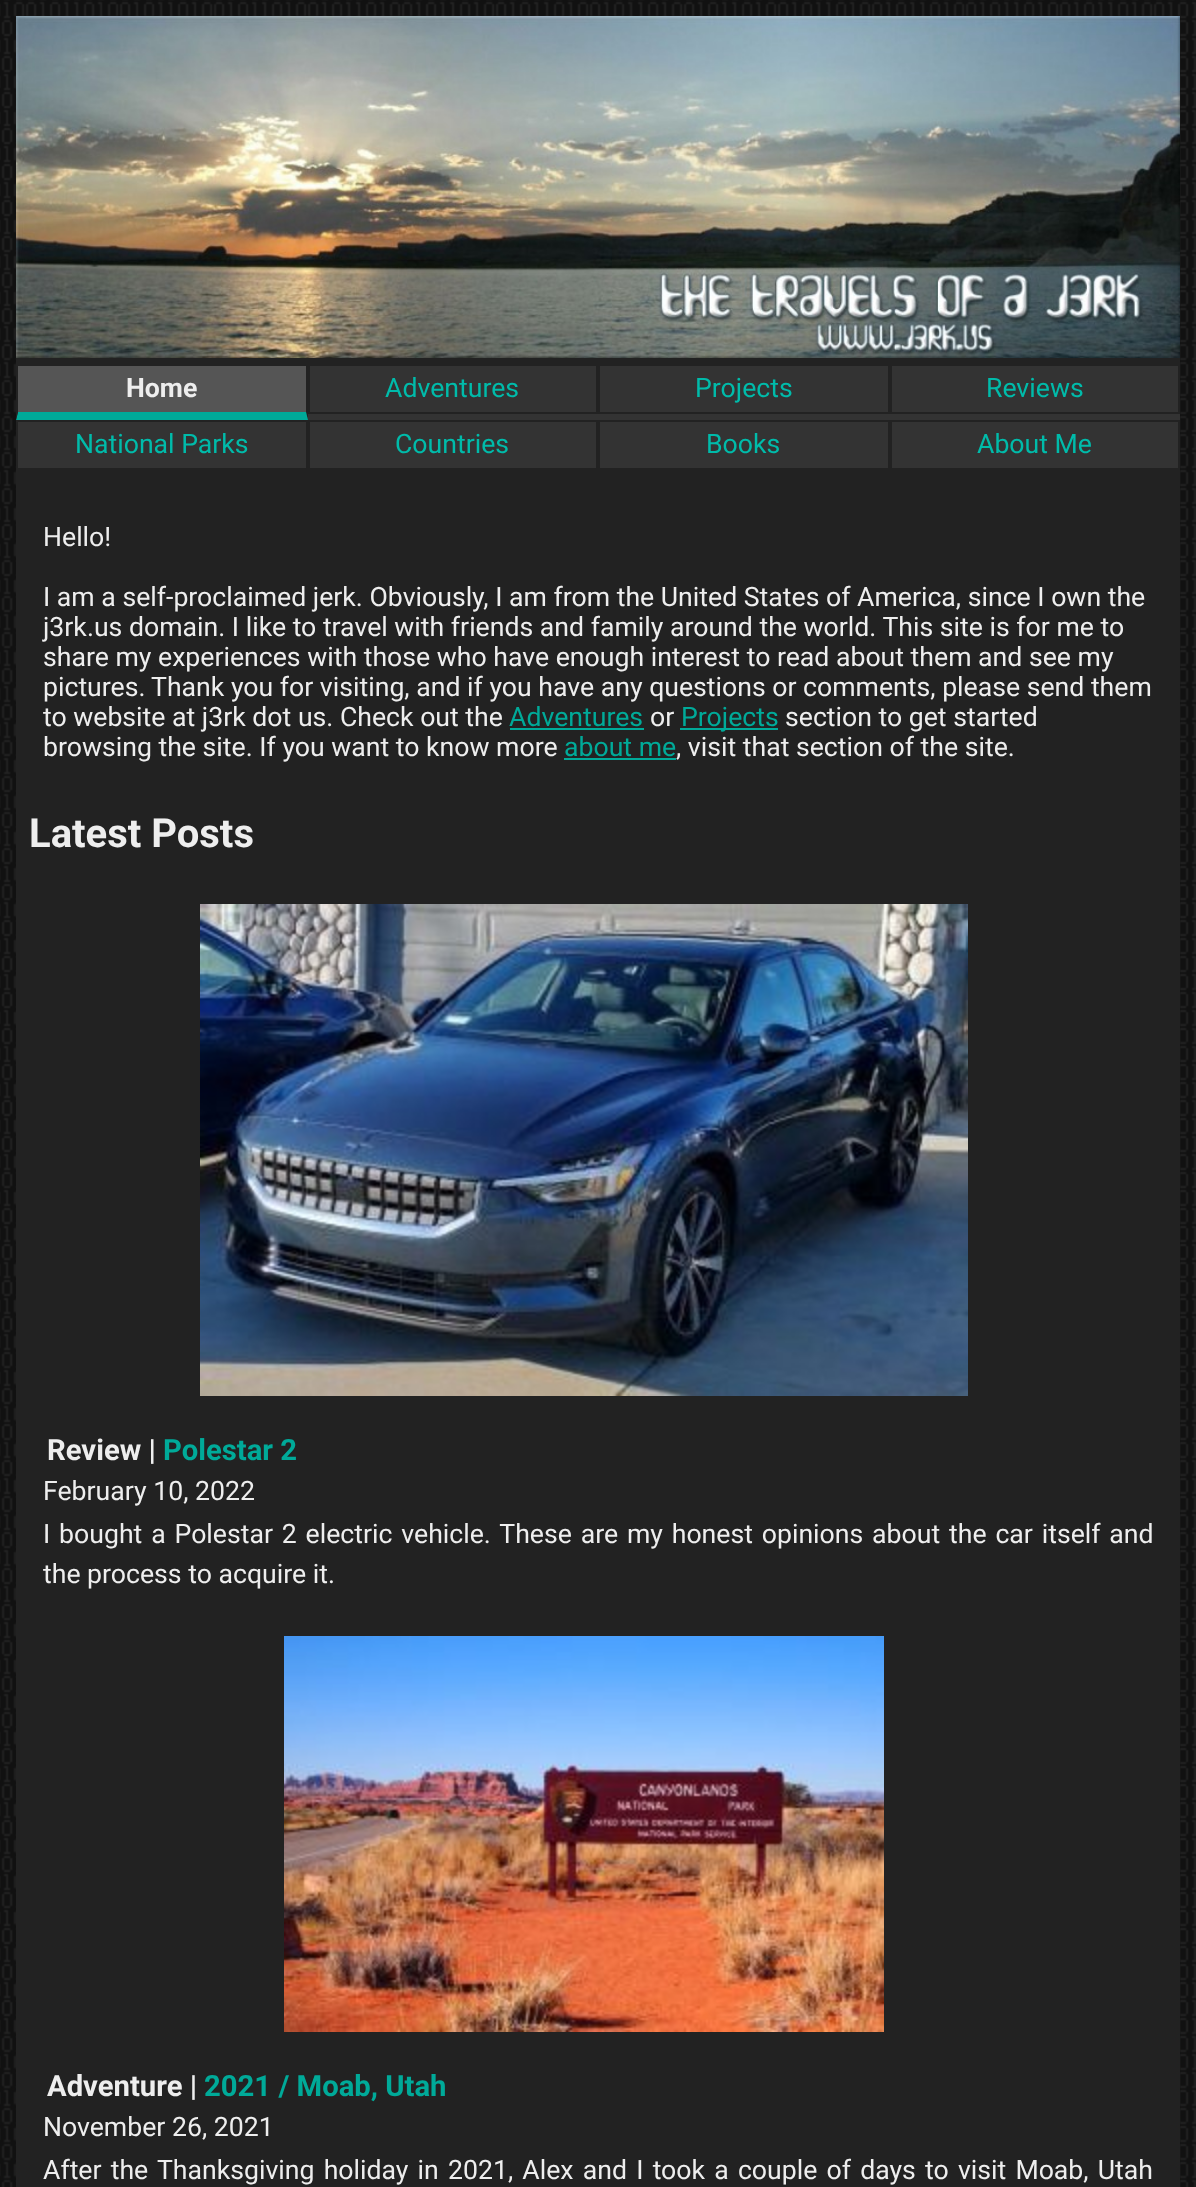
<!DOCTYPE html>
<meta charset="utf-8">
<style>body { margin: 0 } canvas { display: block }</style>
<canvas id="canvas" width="1196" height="2187"></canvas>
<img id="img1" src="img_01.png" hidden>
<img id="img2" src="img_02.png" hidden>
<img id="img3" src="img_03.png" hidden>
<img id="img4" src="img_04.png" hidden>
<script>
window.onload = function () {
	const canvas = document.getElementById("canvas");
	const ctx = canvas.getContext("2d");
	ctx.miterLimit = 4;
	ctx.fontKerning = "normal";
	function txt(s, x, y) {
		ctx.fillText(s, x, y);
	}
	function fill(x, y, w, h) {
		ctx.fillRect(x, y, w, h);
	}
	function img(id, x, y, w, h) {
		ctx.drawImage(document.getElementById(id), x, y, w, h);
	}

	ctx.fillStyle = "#FFFFFF";
	fill(0, 0, 1196, 2187);
	img("img1", 0, 0, 1196, 2187);
	ctx.fillStyle = "#222222";
	fill(16, 358, 1164, 6);
	img("img2", 16, 16, 1164, 342);
	ctx.fillStyle = "#333333";
	fill(16, 366, 1164, 102);
	ctx.fillStyle = "#555555";
	fill(18, 366, 288, 46);
	ctx.fillStyle = "#222222";
	fill(16, 364, 292, 2);
	ctx.beginPath();
	ctx.moveTo(308, 364);
	ctx.lineTo(308, 420);
	ctx.lineTo(306, 412);
	ctx.lineTo(306, 366);
	ctx.closePath();
	ctx.fill();
	ctx.fillStyle = "#00AA99";
	ctx.beginPath();
	ctx.moveTo(308, 420);
	ctx.lineTo(16, 420);
	ctx.lineTo(18, 412);
	ctx.lineTo(306, 412);
	ctx.closePath();
	ctx.fill();
	ctx.fillStyle = "#222222";
	ctx.beginPath();
	ctx.moveTo(16, 420);
	ctx.lineTo(16, 364);
	ctx.lineTo(18, 366);
	ctx.lineTo(18, 412);
	ctx.closePath();
	ctx.fill();
	ctx.strokeStyle = "#222222";
	ctx.lineWidth = 2;
	ctx.strokeRect(309, 365, 288, 48);
	ctx.strokeRect(599, 365, 290, 48);
	ctx.strokeRect(891, 365, 288, 48);
	ctx.strokeRect(17, 421, 290, 48);
	ctx.strokeRect(309, 421, 288, 48);
	ctx.strokeRect(599, 421, 290, 48);
	ctx.strokeRect(891, 421, 288, 48);
	fill(16, 470, 1164, 1717);
	ctx.fillStyle = "#00AA99";
	fill(510, 728, 134, 2);
	fill(680, 728, 98, 2);
	fill(564, 758, 112, 2);
	img("img3", 200, 904, 768, 492);
	img("img4", 284, 1636, 600, 396);
	ctx.font = "bold 26.65px Roboto";
	ctx.fillStyle = "#EEEEEE";
	txt("Home", 126, 397);
	ctx.font = "26.65px Roboto";
	ctx.fillStyle = "#00BBAA";
	txt("Adventures", 385, 397);
	txt("Projects", 695, 397);
	txt("Reviews", 986, 397);
	txt("National Parks", 75, 453);
	txt("Countries", 395, 453);
	txt("Books", 706, 453);
	txt("About Me", 977, 453);
	ctx.fillStyle = "#EEEEEE";
	txt("Hello!", 43, 546);
	txt("I am a self-proclaimed jerk. Obviously, I am from the United States of America, since I own the", 43, 606);
	txt("j3rk.us domain. I like to travel with friends and family around the world. This site is for me to", 43, 636);
	txt("share my experiences with those who have enough interest to read about them and see my", 43, 666);
	txt("pictures.", 43, 696);
	txt("Thank you for visiting, and if you have any questions or comments, please send them", 151, 696);
	txt("to website at j3rk dot us. Check out the", 43, 726);
	ctx.fillStyle = "#00AA99";
	txt("Adventures", 509, 726);
	ctx.fillStyle = "#EEEEEE";
	txt("or", 650, 726);
	ctx.fillStyle = "#00AA99";
	txt("Projects", 681, 726);
	ctx.fillStyle = "#EEEEEE";
	txt("section to get started", 785, 726);
	txt("browsing the site. If you want to know more", 43, 756);
	ctx.fillStyle = "#00AA99";
	txt("about me", 564, 756);
	ctx.fillStyle = "#EEEEEE";
	txt(", visit that section of the site.", 676, 756);
	ctx.font = "bold 40px Roboto";
	txt("Latest Posts", 29, 847);
	ctx.font = "bold 29.25px Roboto";
	txt("Review |", 47, 1460);
	ctx.fillStyle = "#00AA99";
	txt("Polestar 2", 163, 1460);
	ctx.font = "26.65px Roboto";
	ctx.fillStyle = "#EEEEEE";
	txt("February 10, 2022", 43, 1500);
	ctx.wordSpacing = "2.25px";
	txt("I bought a Polestar 2 electric vehicle. These are my honest opinions about the car itself and", 43, 1543);
	ctx.wordSpacing = "0px";
	txt("the process to acquire it.", 43, 1583);
	ctx.font = "bold 29.25px Roboto";
	txt("Adventure |", 47, 2096);
	ctx.fillStyle = "#00AA99";
	txt("2021 / Moab, Utah", 204, 2096);
	ctx.font = "26.65px Roboto";
	ctx.fillStyle = "#EEEEEE";
	txt("November 26, 2021", 43, 2136);
	ctx.wordSpacing = "2.6px";
	txt("After the Thanksgiving holiday in 2021, Alex and I took a couple of days to visit Moab, Utah", 43, 2179);
};
</script>
